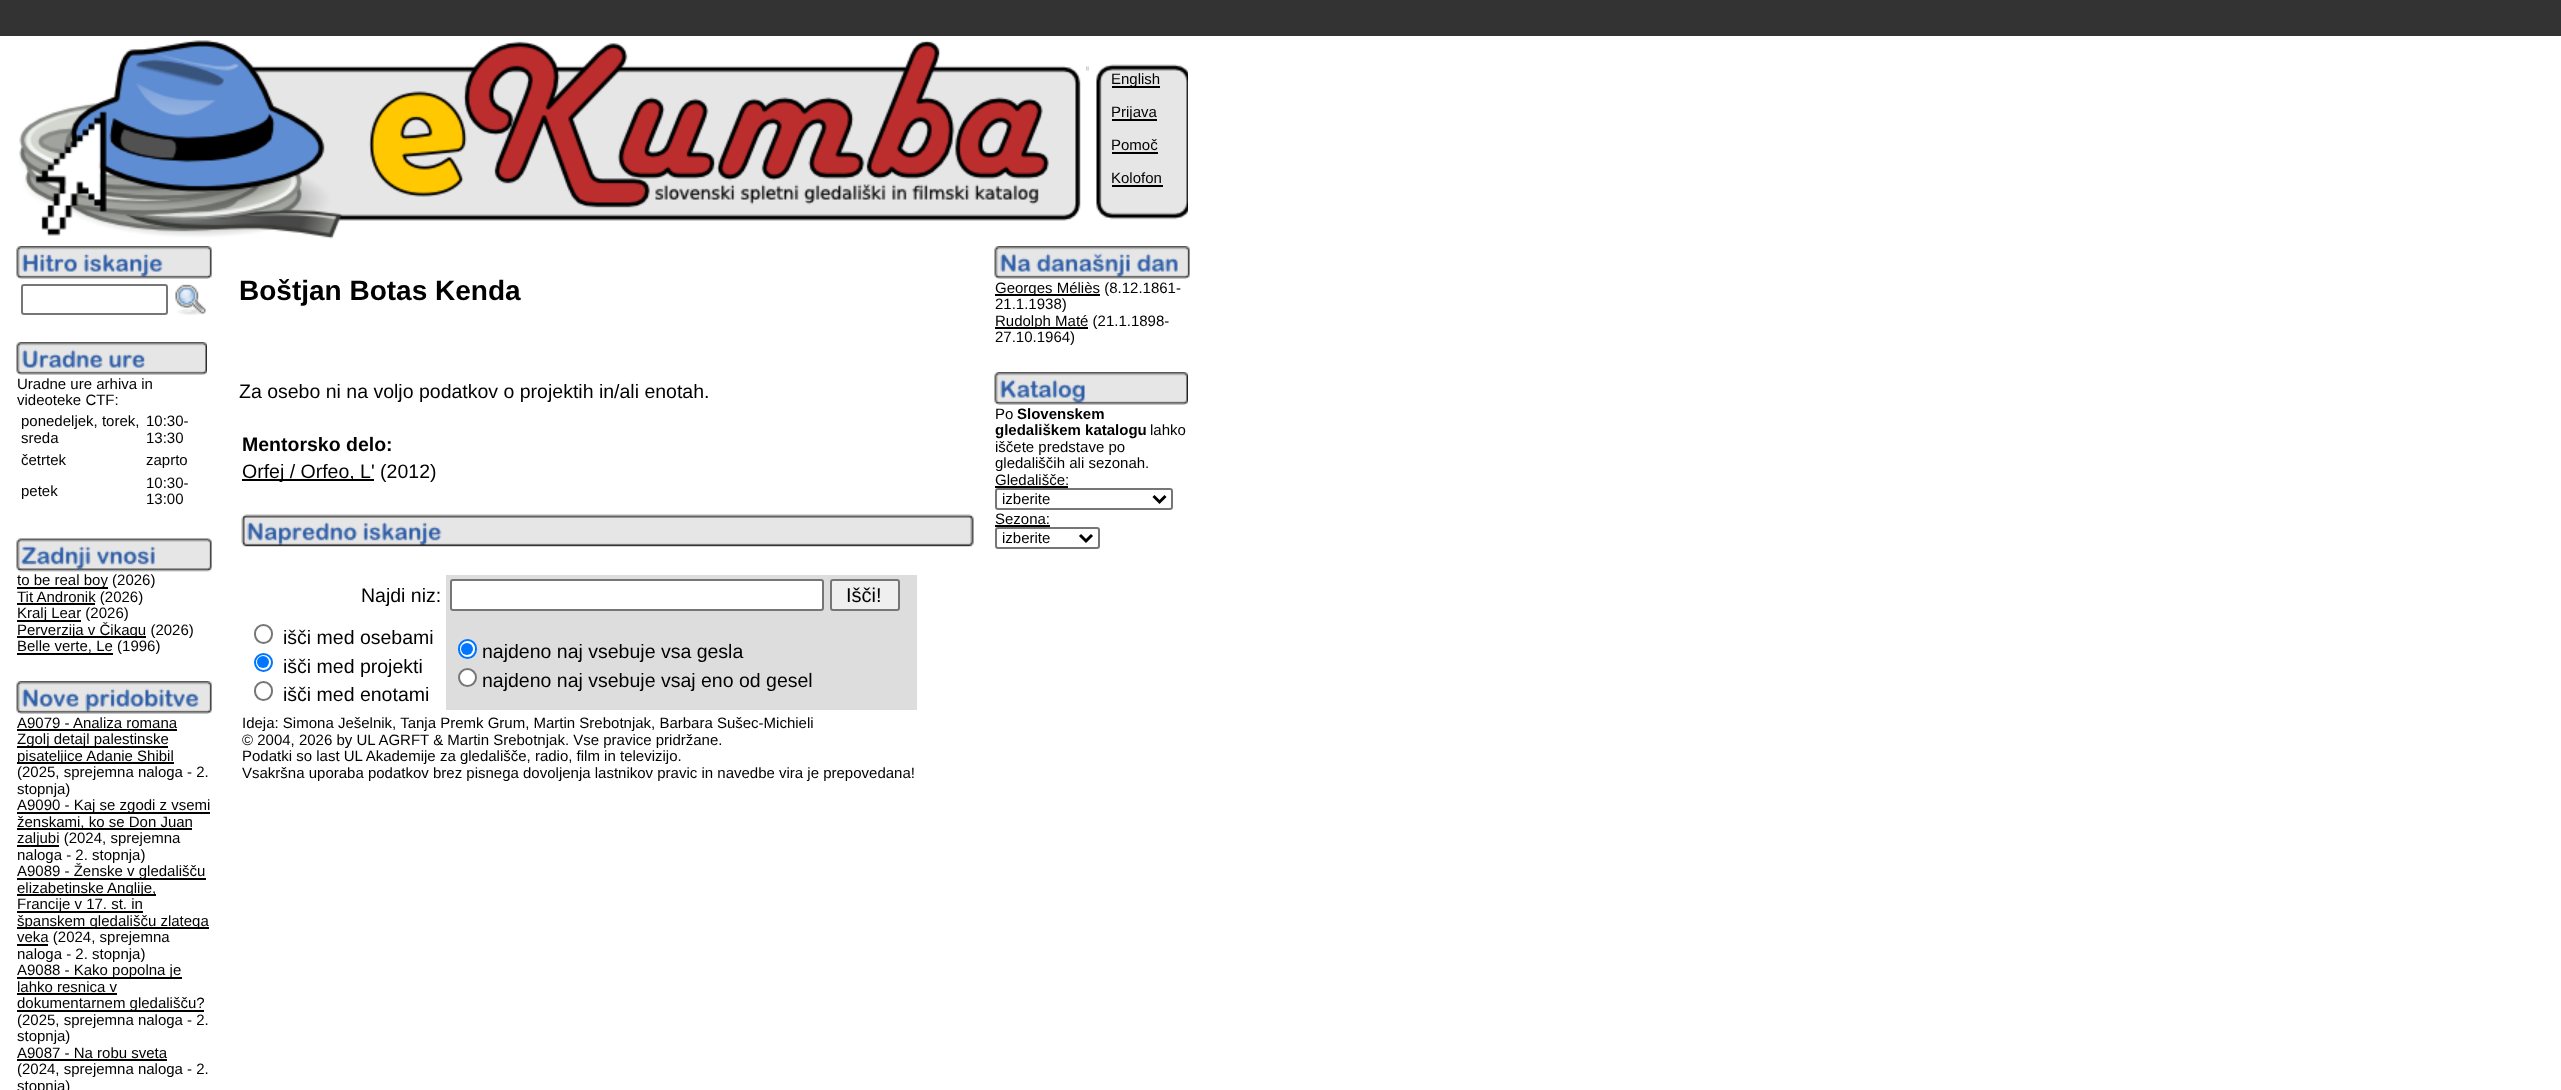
<!DOCTYPE html>
<meta charset="utf-8">
<style>body { margin: 0 } canvas { display: block }</style>
<canvas id="canvas" width="2561" height="1090"></canvas>
<img id="img1" src="img_01.png" hidden>
<img id="img2" src="img_02.png" hidden>
<img id="img3" src="img_03.png" hidden>
<img id="img4" src="img_04.png" hidden>
<img id="img5" src="img_05.png" hidden>
<img id="img6" src="img_06.png" hidden>
<img id="img7" src="img_07.png" hidden>
<img id="img8" src="img_08.png" hidden>
<img id="img9" src="img_09.png" hidden>
<img id="img10" src="img_10.png" hidden>
<img id="img11" src="img_11.png" hidden>
<script>
window.onload = function () {
	const canvas = document.getElementById("canvas");
	const ctx = canvas.getContext("2d");
	ctx.miterLimit = 4;
	ctx.fontKerning = "normal";
	function txt(s, x, y) {
		ctx.fillText(s, x, y);
	}
	function fill(x, y, w, h) {
		ctx.fillRect(x, y, w, h);
	}
	function img(id, x, y, w, h) {
		ctx.drawImage(document.getElementById(id), x, y, w, h);
	}

	ctx.fillStyle = "#FFFFFF";
	fill(0, 0, 2561, 1090);
	ctx.fillStyle = "#333333";
	fill(0, 0, 2561, 36);
	img("img1", 19, 40, 1062, 199);
	img("img2", 1096, 64, 92, 156);
	img("img3", 1086, 66, 3, 5);
	ctx.fillStyle = "#000000";
	fill(1112, 86, 48, 2);
	fill(1112, 119, 45, 2);
	fill(1112, 152, 46, 2);
	fill(1112, 185, 51, 2);
	img("img4", 16, 246, 196, 33);
	ctx.beginPath();
	ctx.roundRect(22, 285, 145, 29, 2);
	ctx.strokeStyle = "#767676";
	ctx.lineWidth = 2;
	ctx.stroke();
	img("img5", 175, 284, 31, 31);
	img("img6", 16, 342, 191, 33);
	img("img7", 16, 538, 196, 34);
	fill(17, 587, 91, 2);
	fill(17, 603, 78, 2);
	fill(17, 620, 64, 2);
	fill(17, 636, 129, 2);
	fill(17, 653, 96, 2);
	img("img8", 16, 681, 196, 33);
	fill(17, 729, 160, 2);
	fill(17, 746, 151, 2);
	fill(17, 762, 157, 2);
	fill(17, 812, 193, 2);
	fill(17, 828, 175, 2);
	fill(17, 845, 42, 2);
	fill(17, 878, 189, 2);
	fill(17, 894, 139, 2);
	fill(17, 911, 126, 2);
	fill(17, 927, 192, 2);
	fill(17, 944, 31, 2);
	fill(17, 977, 165, 2);
	fill(17, 993, 100, 2);
	fill(17, 1010, 187, 2);
	fill(17, 1059, 150, 2);
	fill(242, 479, 132, 2);
	img("img9", 241, 514, 733, 33);
	ctx.fillStyle = "#DDDDDD";
	fill(446, 575, 471, 135);
	ctx.fillStyle = "#FFFFFF";
	ctx.beginPath();
	ctx.roundRect(451, 580, 372, 30, 2);
	ctx.fill();
	ctx.stroke();
	ctx.fillStyle = "#EFEFEF";
	ctx.beginPath();
	ctx.roundRect(831, 580, 68, 30, 2);
	ctx.fill();
	ctx.stroke();
	ctx.beginPath();
	ctx.roundRect(255, 625, 17, 18, 8.5);
	ctx.stroke();
	ctx.beginPath();
	ctx.arc(263.5, 662.5, 8.5, 0, Math.PI * 2);
	ctx.strokeStyle = "#0075FF";
	ctx.stroke();
	ctx.fillStyle = "#0075FF";
	ctx.beginPath();
	ctx.arc(263, 662, 6, 0, Math.PI * 2);
	ctx.fill();
	ctx.beginPath();
	ctx.roundRect(255, 682, 17, 18, 8.5);
	ctx.strokeStyle = "#767676";
	ctx.stroke();
	ctx.fillStyle = "#FFFFFF";
	ctx.beginPath();
	ctx.roundRect(459, 640, 17, 18, 8.5);
	ctx.fill();
	ctx.strokeStyle = "#0075FF";
	ctx.stroke();
	ctx.fillStyle = "#0075FF";
	ctx.beginPath();
	ctx.arc(467, 649, 6, 0, Math.PI * 2);
	ctx.fill();
	ctx.fillStyle = "#FFFFFF";
	ctx.beginPath();
	ctx.arc(467.5, 677.5, 8.5, 0, Math.PI * 2);
	ctx.fill();
	ctx.strokeStyle = "#767676";
	ctx.stroke();
	img("img10", 994, 246, 196, 33);
	ctx.fillStyle = "#000000";
	fill(995, 294, 105, 2);
	fill(995, 327, 93, 2);
	img("img11", 994, 372, 194, 33);
	fill(995, 486, 73, 2);
	ctx.beginPath();
	ctx.roundRect(996, 489, 176, 20, 2);
	ctx.stroke();
	ctx.beginPath();
	ctx.moveTo(1153.5, 496);
	ctx.lineTo(1159.5, 502);
	ctx.lineTo(1165.5, 496);
	ctx.strokeStyle = "#000000";
	ctx.lineWidth = 3;
	ctx.stroke();
	fill(995, 525, 55, 2);
	ctx.beginPath();
	ctx.roundRect(996, 528, 103, 20, 2);
	ctx.strokeStyle = "#767676";
	ctx.lineWidth = 2;
	ctx.stroke();
	ctx.beginPath();
	ctx.moveTo(1080, 535);
	ctx.lineTo(1086, 541);
	ctx.lineTo(1092, 535);
	ctx.strokeStyle = "#000000";
	ctx.lineWidth = 3;
	ctx.stroke();
	ctx.font = "15px Liberation Sans";
	txt("English", 1111, 84);
	txt("Prijava", 1111, 117);
	txt("Pomoč", 1111, 150);
	txt("Kolofon", 1111, 183);
	txt("Uradne ure arhiva in", 17, 389);
	txt("videoteke CTF:", 17, 405);
	txt("ponedeljek, torek,", 21, 426);
	txt("sreda", 21, 443);
	txt("10:30-", 146, 426);
	txt("13:30", 146, 443);
	txt("četrtek", 21, 465);
	txt("zaprto", 146, 465);
	txt("petek", 21, 496);
	txt("10:30-", 146, 488);
	txt("13:00", 146, 504);
	txt("to be real boy (2026)", 17, 585);
	txt("Tit Andronik (2026)", 17, 602);
	txt("Kralj Lear (2026)", 17, 618);
	txt("Perverzija v Čikagu (2026)", 17, 635);
	txt("Belle verte, Le (1996)", 17, 651);
	txt("A9079 - Analiza romana", 17, 728);
	txt("Zgolj detajl palestinske", 17, 744);
	txt("pisateljice Adanie Shibil", 17, 761);
	txt("(2025, sprejemna naloga - 2.", 17, 777);
	txt("stopnja)", 17, 794);
	txt("A9090 - Kaj se zgodi z vsemi", 17, 810);
	txt("ženskami, ko se Don Juan", 17, 827);
	txt("zaljubi (2024, sprejemna", 17, 843);
	txt("naloga - 2. stopnja)", 17, 860);
	txt("A9089 - Ženske v gledališču", 17, 876);
	txt("elizabetinske Anglije,", 17, 893);
	txt("Francije v 17. st. in", 17, 909);
	txt("španskem gledališču zlatega", 17, 926);
	txt("veka (2024, sprejemna", 17, 942);
	txt("naloga - 2. stopnja)", 17, 959);
	txt("A9088 - Kako popolna je", 17, 975);
	txt("lahko resnica v", 17, 992);
	txt("dokumentarnem gledališču?", 17, 1008);
	txt("(2025, sprejemna naloga - 2.", 17, 1025);
	txt("stopnja)", 17, 1041);
	txt("A9087 - Na robu sveta", 17, 1058);
	txt("(2024, sprejemna naloga - 2.", 17, 1074);
	txt("stopnja)", 17, 1091);
	ctx.font = "bold 28px Liberation Sans";
	txt("Boštjan Botas Kenda", 239, 300);
	ctx.font = "19.5px Liberation Sans";
	txt("Za osebo ni na voljo podatkov o projektih in/ali enotah.", 239, 398);
	ctx.font = "bold 19.5px Liberation Sans";
	txt("Mentorsko delo:", 242, 451);
	ctx.font = "19.5px Liberation Sans";
	txt("Orfej / Orfeo, L' (2012)", 242, 478);
	txt("Najdi niz:", 361, 602);
	ctx.font = "20px Liberation Sans";
	txt("Išči!", 846, 602);
	ctx.font = "19.5px Liberation Sans";
	txt("išči med osebami", 283, 644);
	txt("išči med projekti", 283, 673);
	txt("išči med enotami", 283, 701);
	txt("najdeno naj vsebuje vsa gesla", 482, 658);
	txt("najdeno naj vsebuje vsaj eno od gesel", 482, 687);
	ctx.font = "15px Liberation Sans";
	txt("Ideja: Simona Ješelnik, Tanja Premk Grum, Martin Srebotnjak, Barbara Sušec-Michieli", 242, 728);
	txt("© 2004, 2026 by UL AGRFT & Martin Srebotnjak. Vse pravice pridržane.", 242, 745);
	txt("Podatki so last UL Akademije za gledališče, radio, film in televizijo.", 242, 761);
	txt("Vsakršna uporaba podatkov brez pisnega dovoljenja lastnikov pravic in navedbe vira je prepovedana!", 242, 778);
	txt("Georges Méliès (8.12.1861-", 995, 293);
	txt("21.1.1938)", 995, 309);
	txt("Rudolph Maté (21.1.1898-", 995, 326);
	txt("27.10.1964)", 995, 342);
	txt("Po", 995, 419);
	ctx.font = "bold 15px Liberation Sans";
	txt("Slovenskem", 1017, 419);
	txt("gledališkem katalogu", 995, 435);
	ctx.font = "15px Liberation Sans";
	txt("lahko", 1150, 435);
	txt("iščete predstave po", 995, 452);
	txt("gledališčih ali sezonah.", 995, 468);
	txt("Gledališče:", 995, 485);
	txt("izberite", 1002, 504);
	txt("Sezona:", 995, 524);
	txt("izberite", 1002, 543);
};
</script>
